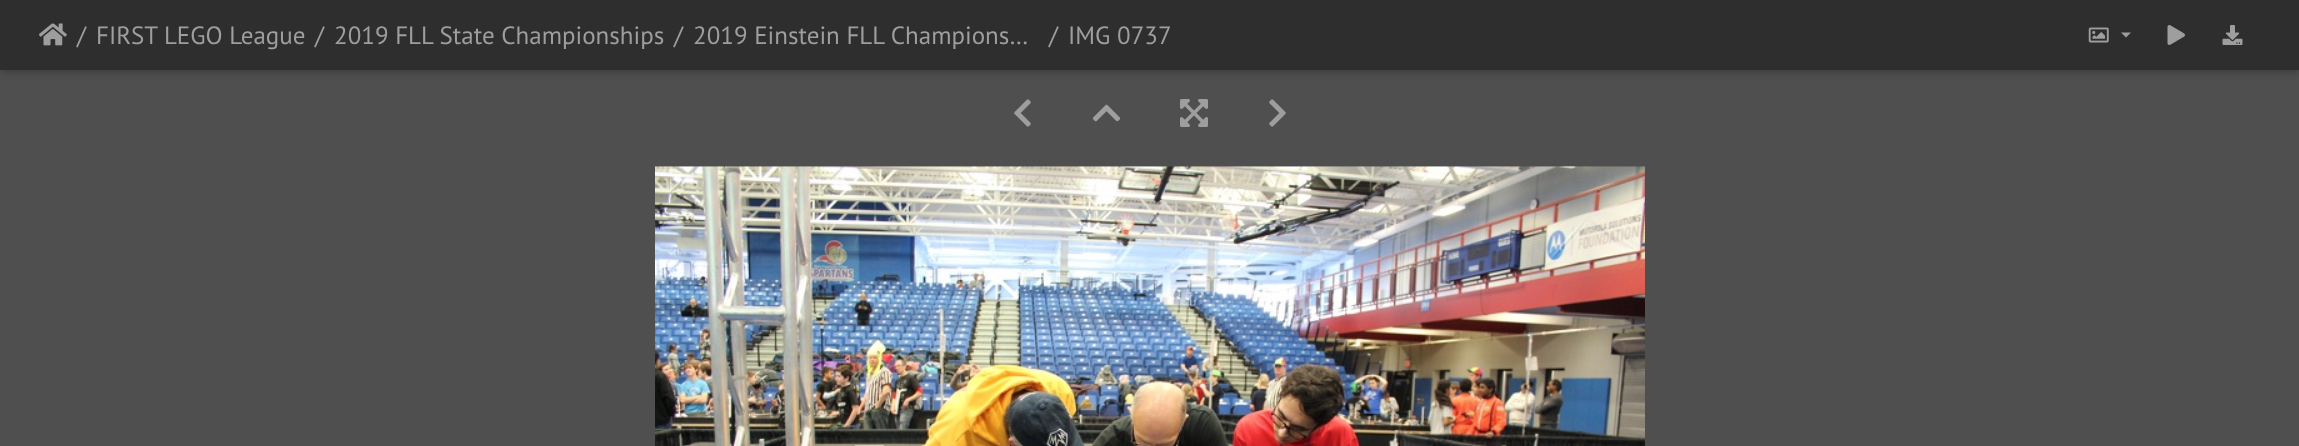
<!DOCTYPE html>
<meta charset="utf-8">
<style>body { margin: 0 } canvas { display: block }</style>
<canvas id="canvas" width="2299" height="446"></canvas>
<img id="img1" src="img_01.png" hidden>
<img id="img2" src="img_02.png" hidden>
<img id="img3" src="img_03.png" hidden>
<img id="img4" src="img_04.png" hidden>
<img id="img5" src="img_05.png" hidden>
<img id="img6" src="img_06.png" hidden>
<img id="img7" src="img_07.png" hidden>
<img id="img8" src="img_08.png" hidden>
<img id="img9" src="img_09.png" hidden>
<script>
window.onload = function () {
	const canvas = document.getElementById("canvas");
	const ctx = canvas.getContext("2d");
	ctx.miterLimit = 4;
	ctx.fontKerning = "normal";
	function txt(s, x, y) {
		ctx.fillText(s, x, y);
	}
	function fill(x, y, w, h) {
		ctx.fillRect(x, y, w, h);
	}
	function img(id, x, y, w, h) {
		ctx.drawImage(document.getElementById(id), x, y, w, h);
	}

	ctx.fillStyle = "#4F4F4F";
	fill(0, 0, 2299, 446);
	ctx.fillStyle = "rgba(0, 0, 0, 0.2)";
	ctx.filter = "blur(3px)";
	ctx.beginPath();
	ctx.rect(1, 5, 2298, 68);
	ctx.fill();
	ctx.filter = "none";
	ctx.fillStyle = "#2E2E2E";
	fill(0, 0, 2299, 70);
	img("img1", 39, 23, 28, 23);
	img("img2", 2088, 27, 21, 16);
	ctx.fillStyle = "#9E9E9E";
	ctx.beginPath();
	ctx.moveTo(2121, 32.5);
	ctx.lineTo(2131, 32.5);
	ctx.lineTo(2126, 37.5);
	ctx.closePath();
	ctx.fill();
	img("img3", 2167, 25, 18, 20);
	img("img4", 2222, 25, 21, 20);
	img("img5", 1014, 99, 17, 28);
	img("img6", 1092, 104, 29, 18);
	img("img7", 1180, 99, 28, 28);
	img("img8", 1269, 99, 17, 28);
	img("img9", 655, 166, 990, 280);
	ctx.font = "25px PT Sans";
	txt("/", 77, 44);
	txt("FIRST LEGO League", 96, 44);
	txt("/", 315, 44);
	txt("2019 FLL State Championships", 334, 44);
	txt("/", 674, 44);
	txt("2019 Einstein FLL Champions…", 693, 44);
	txt("/", 1049, 44);
	txt("IMG 0737", 1068, 44);
};
</script>
